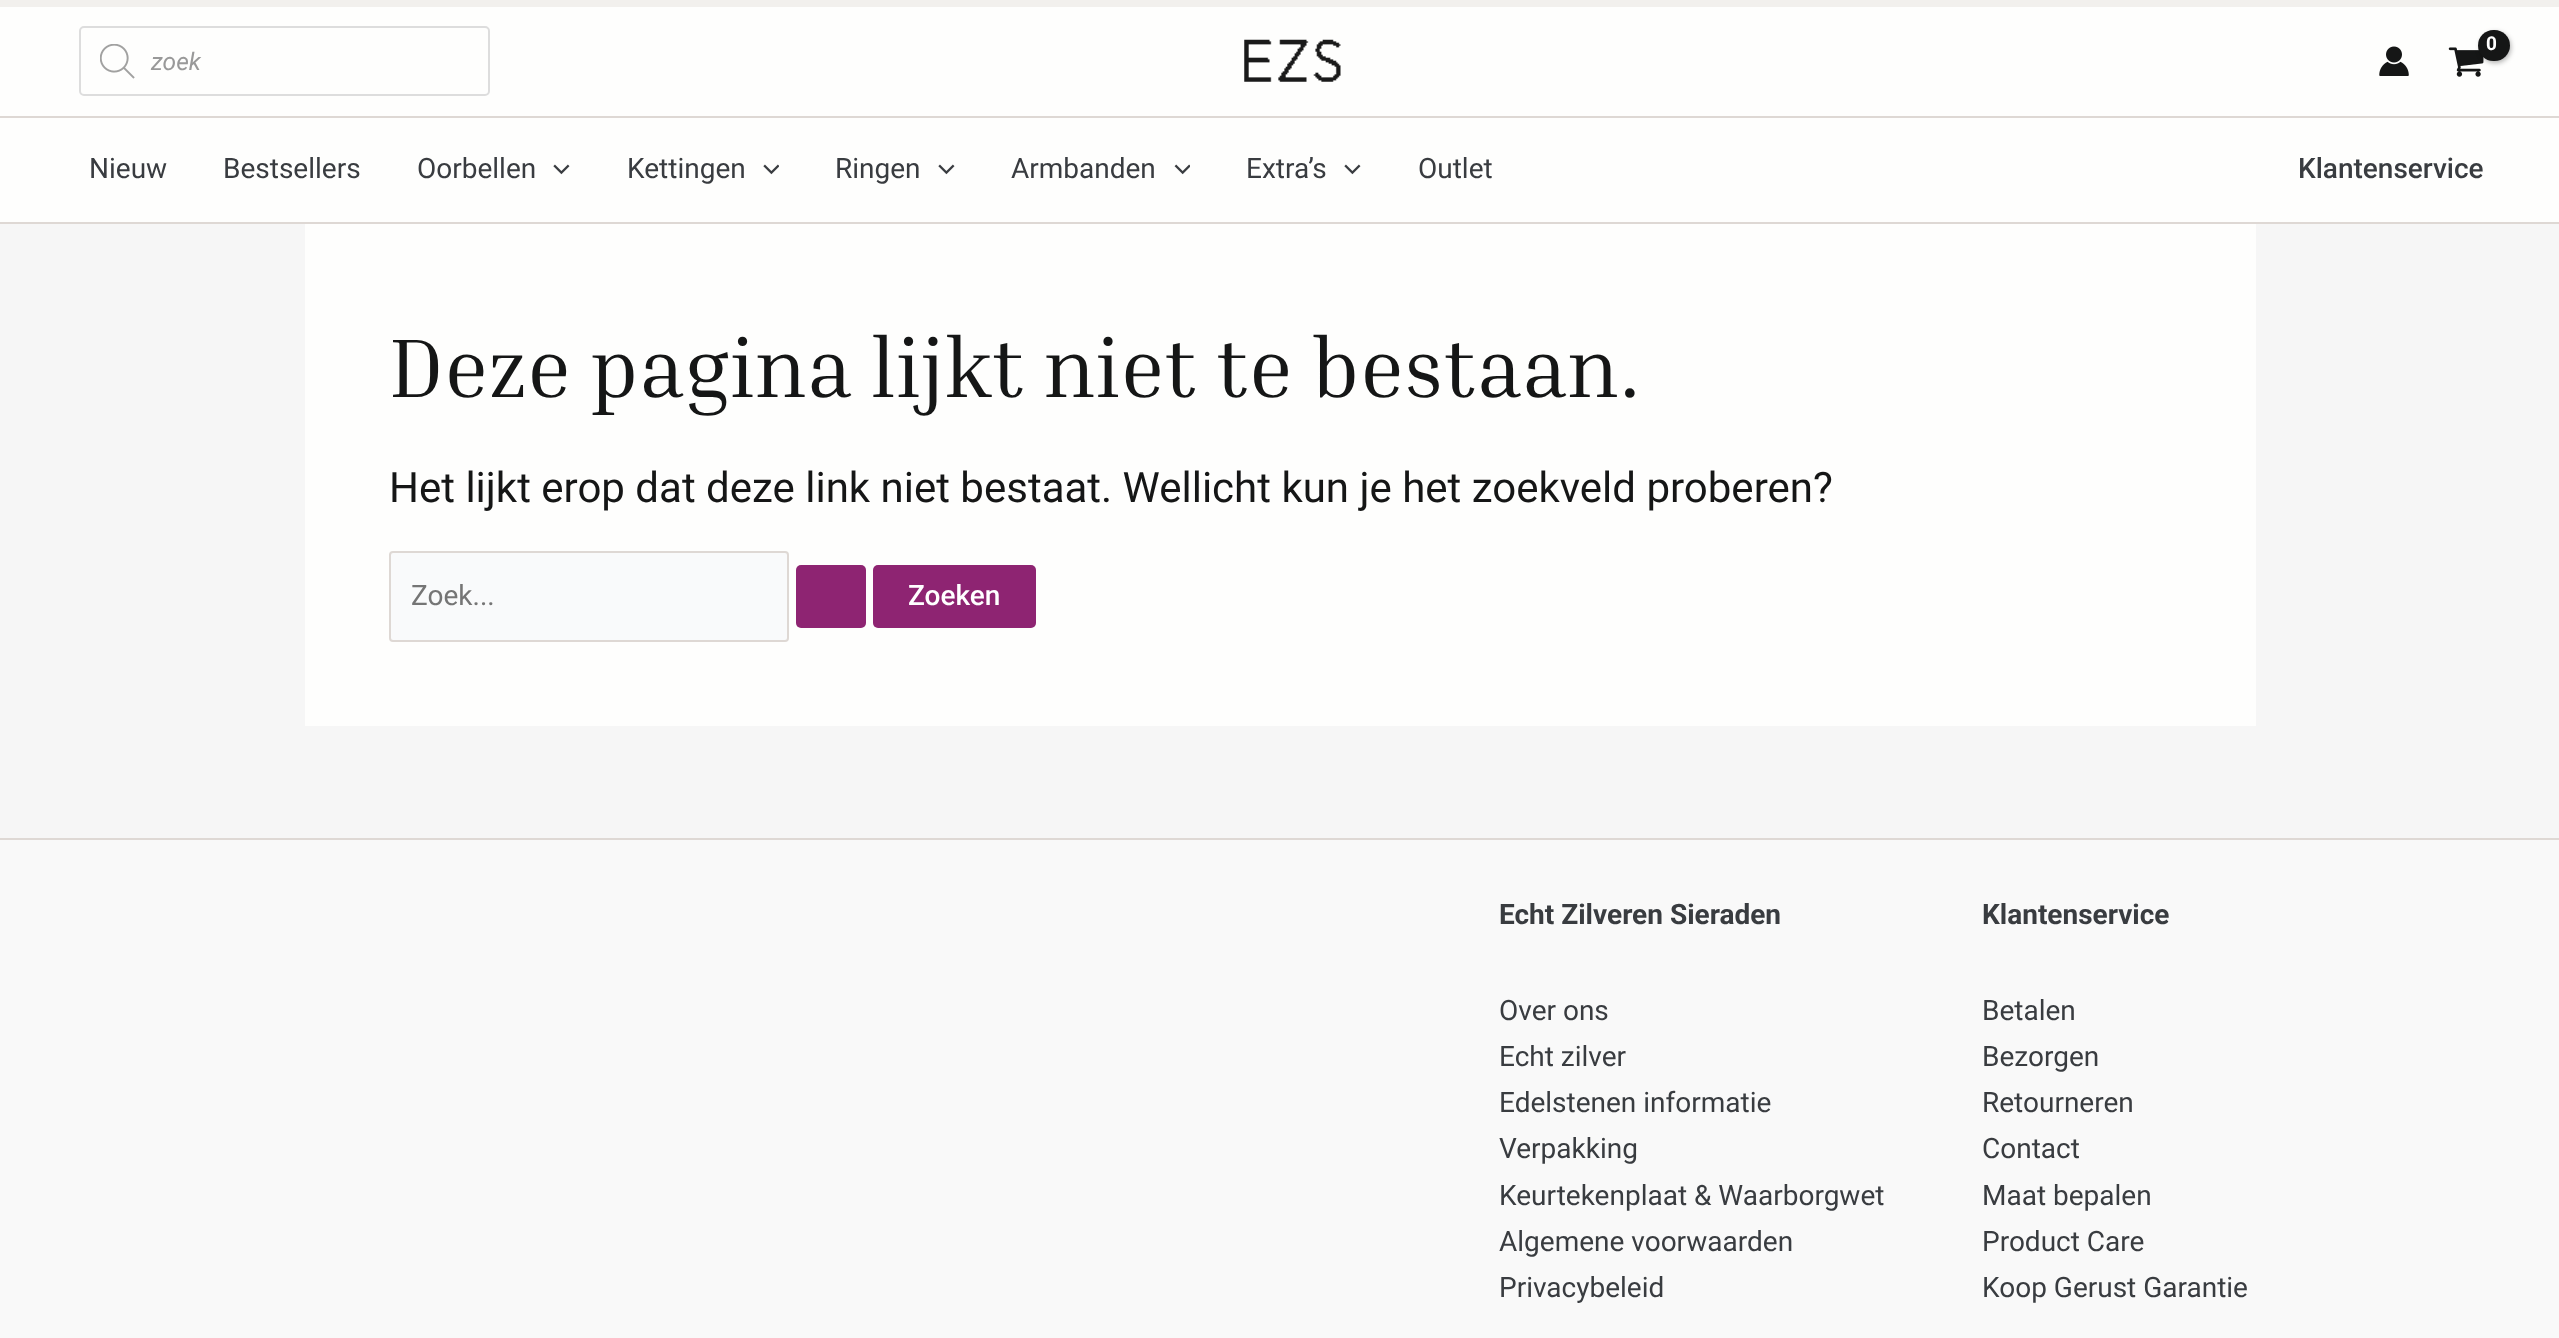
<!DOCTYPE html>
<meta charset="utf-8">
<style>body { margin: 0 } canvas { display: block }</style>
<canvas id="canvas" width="2559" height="1338"></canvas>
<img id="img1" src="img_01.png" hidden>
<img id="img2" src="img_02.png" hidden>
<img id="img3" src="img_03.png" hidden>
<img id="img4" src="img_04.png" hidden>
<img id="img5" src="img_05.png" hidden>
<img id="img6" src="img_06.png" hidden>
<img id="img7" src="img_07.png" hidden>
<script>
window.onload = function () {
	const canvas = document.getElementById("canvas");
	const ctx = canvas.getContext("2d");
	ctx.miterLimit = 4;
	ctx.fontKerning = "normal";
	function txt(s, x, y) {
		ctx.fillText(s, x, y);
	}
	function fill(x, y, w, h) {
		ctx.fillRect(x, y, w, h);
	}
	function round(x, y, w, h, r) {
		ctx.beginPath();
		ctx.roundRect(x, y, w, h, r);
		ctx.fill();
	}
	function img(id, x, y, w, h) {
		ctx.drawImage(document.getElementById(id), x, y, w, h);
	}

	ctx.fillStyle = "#F6F6F6";
	fill(0, 0, 2559, 1338);
	ctx.fillStyle = "#F2F0ED";
	fill(0, 0, 2559, 7);
	ctx.fillStyle = "#FEFEFD";
	fill(0, 7, 2559, 109);
	ctx.fillStyle = "#DED8D4";
	fill(0, 116, 2559, 2);
	ctx.beginPath();
	ctx.roundRect(80, 27, 409, 68, 4);
	ctx.strokeStyle = "#DDDDDD";
	ctx.lineWidth = 2;
	ctx.stroke();
	img("img1", 100, 44, 35, 35);
	img("img2", 1244, 39, 97, 43);
	img("img3", 2448, 47, 36, 30);
	ctx.fillStyle = "rgba(0, 0, 0, 0.3)";
	ctx.filter = "blur(2.5px)";
	ctx.beginPath();
	ctx.roundRect(2480, 32, 31, 31, 15.5);
	ctx.fill();
	ctx.filter = "none";
	ctx.fillStyle = "#151616";
	round(2478, 30, 32, 31, 15.5);
	img("img4", 2379, 46, 30, 30);
	ctx.fillStyle = "#FEFEFD";
	fill(0, 118, 2559, 104);
	ctx.fillStyle = "#DED8D4";
	fill(0, 222, 2559, 2);
	img("img5", 553, 164, 17, 11);
	img("img6", 763, 164, 16, 11);
	img("img5", 938, 164, 17, 11);
	img("img7", 1174, 164, 16, 11);
	img("img5", 1344, 164, 17, 11);
	ctx.fillStyle = "#FEFEFD";
	fill(305, 224, 1951, 502);
	ctx.fillStyle = "#F9FAFB";
	ctx.beginPath();
	ctx.roundRect(390, 552, 398, 89, 3);
	ctx.fill();
	ctx.strokeStyle = "#DED8D4";
	ctx.stroke();
	ctx.fillStyle = "#8E2472";
	round(796, 565, 70, 63, 5);
	round(873, 565, 163, 63, 5);
	ctx.fillStyle = "#F9F9F9";
	fill(0, 840, 2559, 498);
	ctx.fillStyle = "#DED8D4";
	fill(0, 838, 2559, 2);
	ctx.font = "italic 24.5px Roboto";
	ctx.fillStyle = "#999999";
	txt("zoek", 151, 70);
	ctx.letterSpacing = "-1px";
	ctx.font = "bold 19px Roboto";
	ctx.fillStyle = "#FFFFFF";
	txt("0", 2486, 50);
	ctx.letterSpacing = "0px";
	ctx.font = "28px Roboto";
	ctx.fillStyle = "#393C40";
	txt("Nieuw", 89, 178);
	txt("Bestsellers", 223, 178);
	txt("Oorbellen", 417, 178);
	txt("Kettingen", 627, 178);
	txt("Ringen", 835, 178);
	txt("Armbanden", 1011, 178);
	txt("Extra’s", 1246, 178);
	txt("Outlet", 1418, 178);
	ctx.font = "500 28px Roboto";
	txt("Klantenservice", 2298, 178);
	ctx.font = "84px Inria Serif";
	ctx.fillStyle = "#151616";
	txt("Deze pagina lijkt niet te bestaan.", 389, 397);
	ctx.font = "42px Roboto";
	txt("Het lijkt erop dat deze link niet bestaat. Wellicht kun je het zoekveld proberen?", 389, 502);
	ctx.font = "28px Roboto";
	ctx.fillStyle = "#757575";
	txt("Zoek...", 411, 605);
	ctx.font = "500 28px Roboto";
	ctx.fillStyle = "#FFFFFF";
	txt("Zoeken", 908, 605);
	ctx.font = "bold 28px Roboto";
	ctx.fillStyle = "#393C40";
	txt("Echt Zilveren Sieraden", 1499, 924);
	ctx.font = "28px Roboto";
	txt("Over ons", 1499, 1020);
	txt("Echt zilver", 1499, 1066);
	txt("Edelstenen informatie", 1499, 1112);
	txt("Verpakking", 1499, 1158);
	txt("Keurtekenplaat & Waarborgwet", 1499, 1205);
	txt("Algemene voorwaarden", 1499, 1251);
	txt("Privacybeleid", 1499, 1297);
	ctx.font = "bold 28px Roboto";
	txt("Klantenservice", 1982, 924);
	ctx.font = "28px Roboto";
	txt("Betalen", 1982, 1020);
	txt("Bezorgen", 1982, 1066);
	txt("Retourneren", 1982, 1112);
	txt("Contact", 1982, 1158);
	txt("Maat bepalen", 1982, 1205);
	txt("Product Care", 1982, 1251);
	txt("Koop Gerust Garantie", 1982, 1297);
};
</script>
